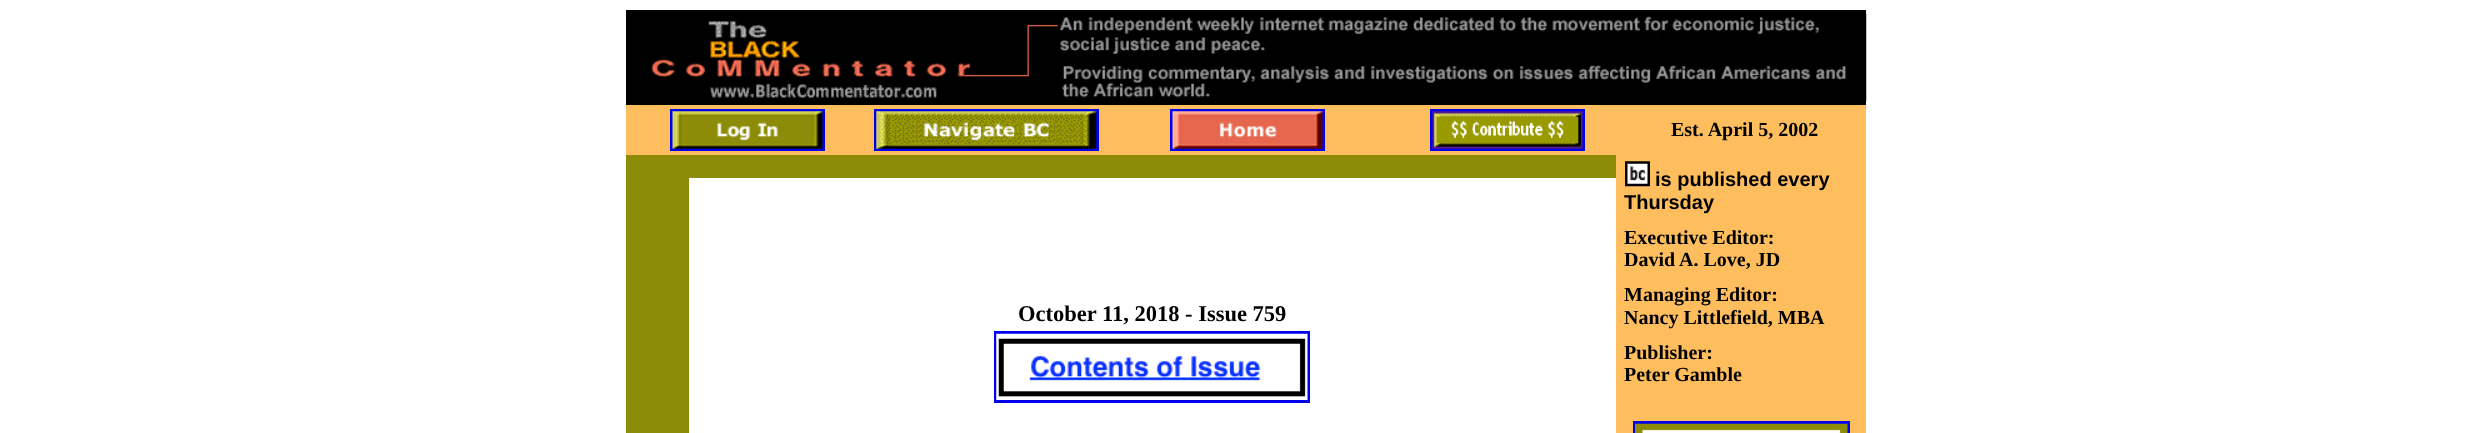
<!DOCTYPE html>
<meta charset="utf-8">
<style>body { margin: 0 } canvas { display: block }</style>
<canvas id="canvas" width="2491" height="433"></canvas>
<img id="img1" src="img_01.png" hidden>
<img id="img2" src="img_02.png" hidden>
<img id="img3" src="img_03.png" hidden>
<img id="img4" src="img_04.png" hidden>
<img id="img5" src="img_05.png" hidden>
<img id="img6" src="img_06.png" hidden>
<img id="img7" src="img_07.png" hidden>
<img id="img8" src="img_08.png" hidden>
<script>
window.onload = function () {
	const canvas = document.getElementById("canvas");
	const ctx = canvas.getContext("2d");
	ctx.miterLimit = 4;
	ctx.fontKerning = "normal";
	function txt(s, x, y) {
		ctx.fillText(s, x, y);
	}
	function fill(x, y, w, h) {
		ctx.fillRect(x, y, w, h);
	}
	function img(id, x, y, w, h) {
		ctx.drawImage(document.getElementById(id), x, y, w, h);
	}

	ctx.fillStyle = "#FFFFFF";
	fill(0, 0, 2491, 433);
	ctx.fillStyle = "#000000";
	fill(626, 10, 1240, 95);
	img("img1", 651, 13, 1216, 89);
	ctx.fillStyle = "#FFBE5E";
	fill(626, 105, 1240, 50);
	ctx.strokeStyle = "#0000EE";
	ctx.lineWidth = 3;
	ctx.strokeRect(671.5, 110.5, 152, 39);
	img("img2", 672, 111, 151, 38);
	ctx.strokeRect(875.5, 110.5, 222, 39);
	img("img3", 876, 111, 221, 38);
	ctx.strokeRect(1171.5, 110.5, 152, 39);
	img("img4", 1172, 111, 151, 38);
	ctx.strokeRect(1431.5, 110.5, 152, 39);
	img("img5", 1432, 111, 151, 38);
	ctx.fillStyle = "#8C8C09";
	fill(626, 155, 63, 278);
	fill(689, 155, 927, 23);
	ctx.strokeRect(995.5, 332.5, 313, 69);
	img("img6", 996, 333, 312, 67);
	ctx.fillStyle = "#FFBE5E";
	fill(1616, 155, 250, 278);
	img("img7", 1625, 161, 25, 26);
	ctx.strokeRect(1634.5, 422.5, 214, 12);
	img("img8", 1635, 423, 213, 10);
	ctx.font = "bold 20px Liberation Serif";
	ctx.fillStyle = "#000000";
	txt("Est. April 5, 2002", 1671, 136);
	ctx.font = "bold 22.5px Liberation Serif";
	txt("October 11, 2018 - Issue 759", 1018, 321);
	ctx.font = "bold 20px Liberation Sans";
	txt("is published every", 1655, 186);
	txt("Thursday", 1624, 209);
	ctx.font = "bold 20px Liberation Serif";
	txt("Executive Editor:", 1624, 244);
	txt("David A. Love, JD", 1624, 266);
	txt("Managing Editor:", 1624, 301);
	txt("Nancy Littlefield, MBA", 1624, 324);
	txt("Publisher:", 1624, 359);
	txt("Peter Gamble", 1624, 381);
};
</script>
